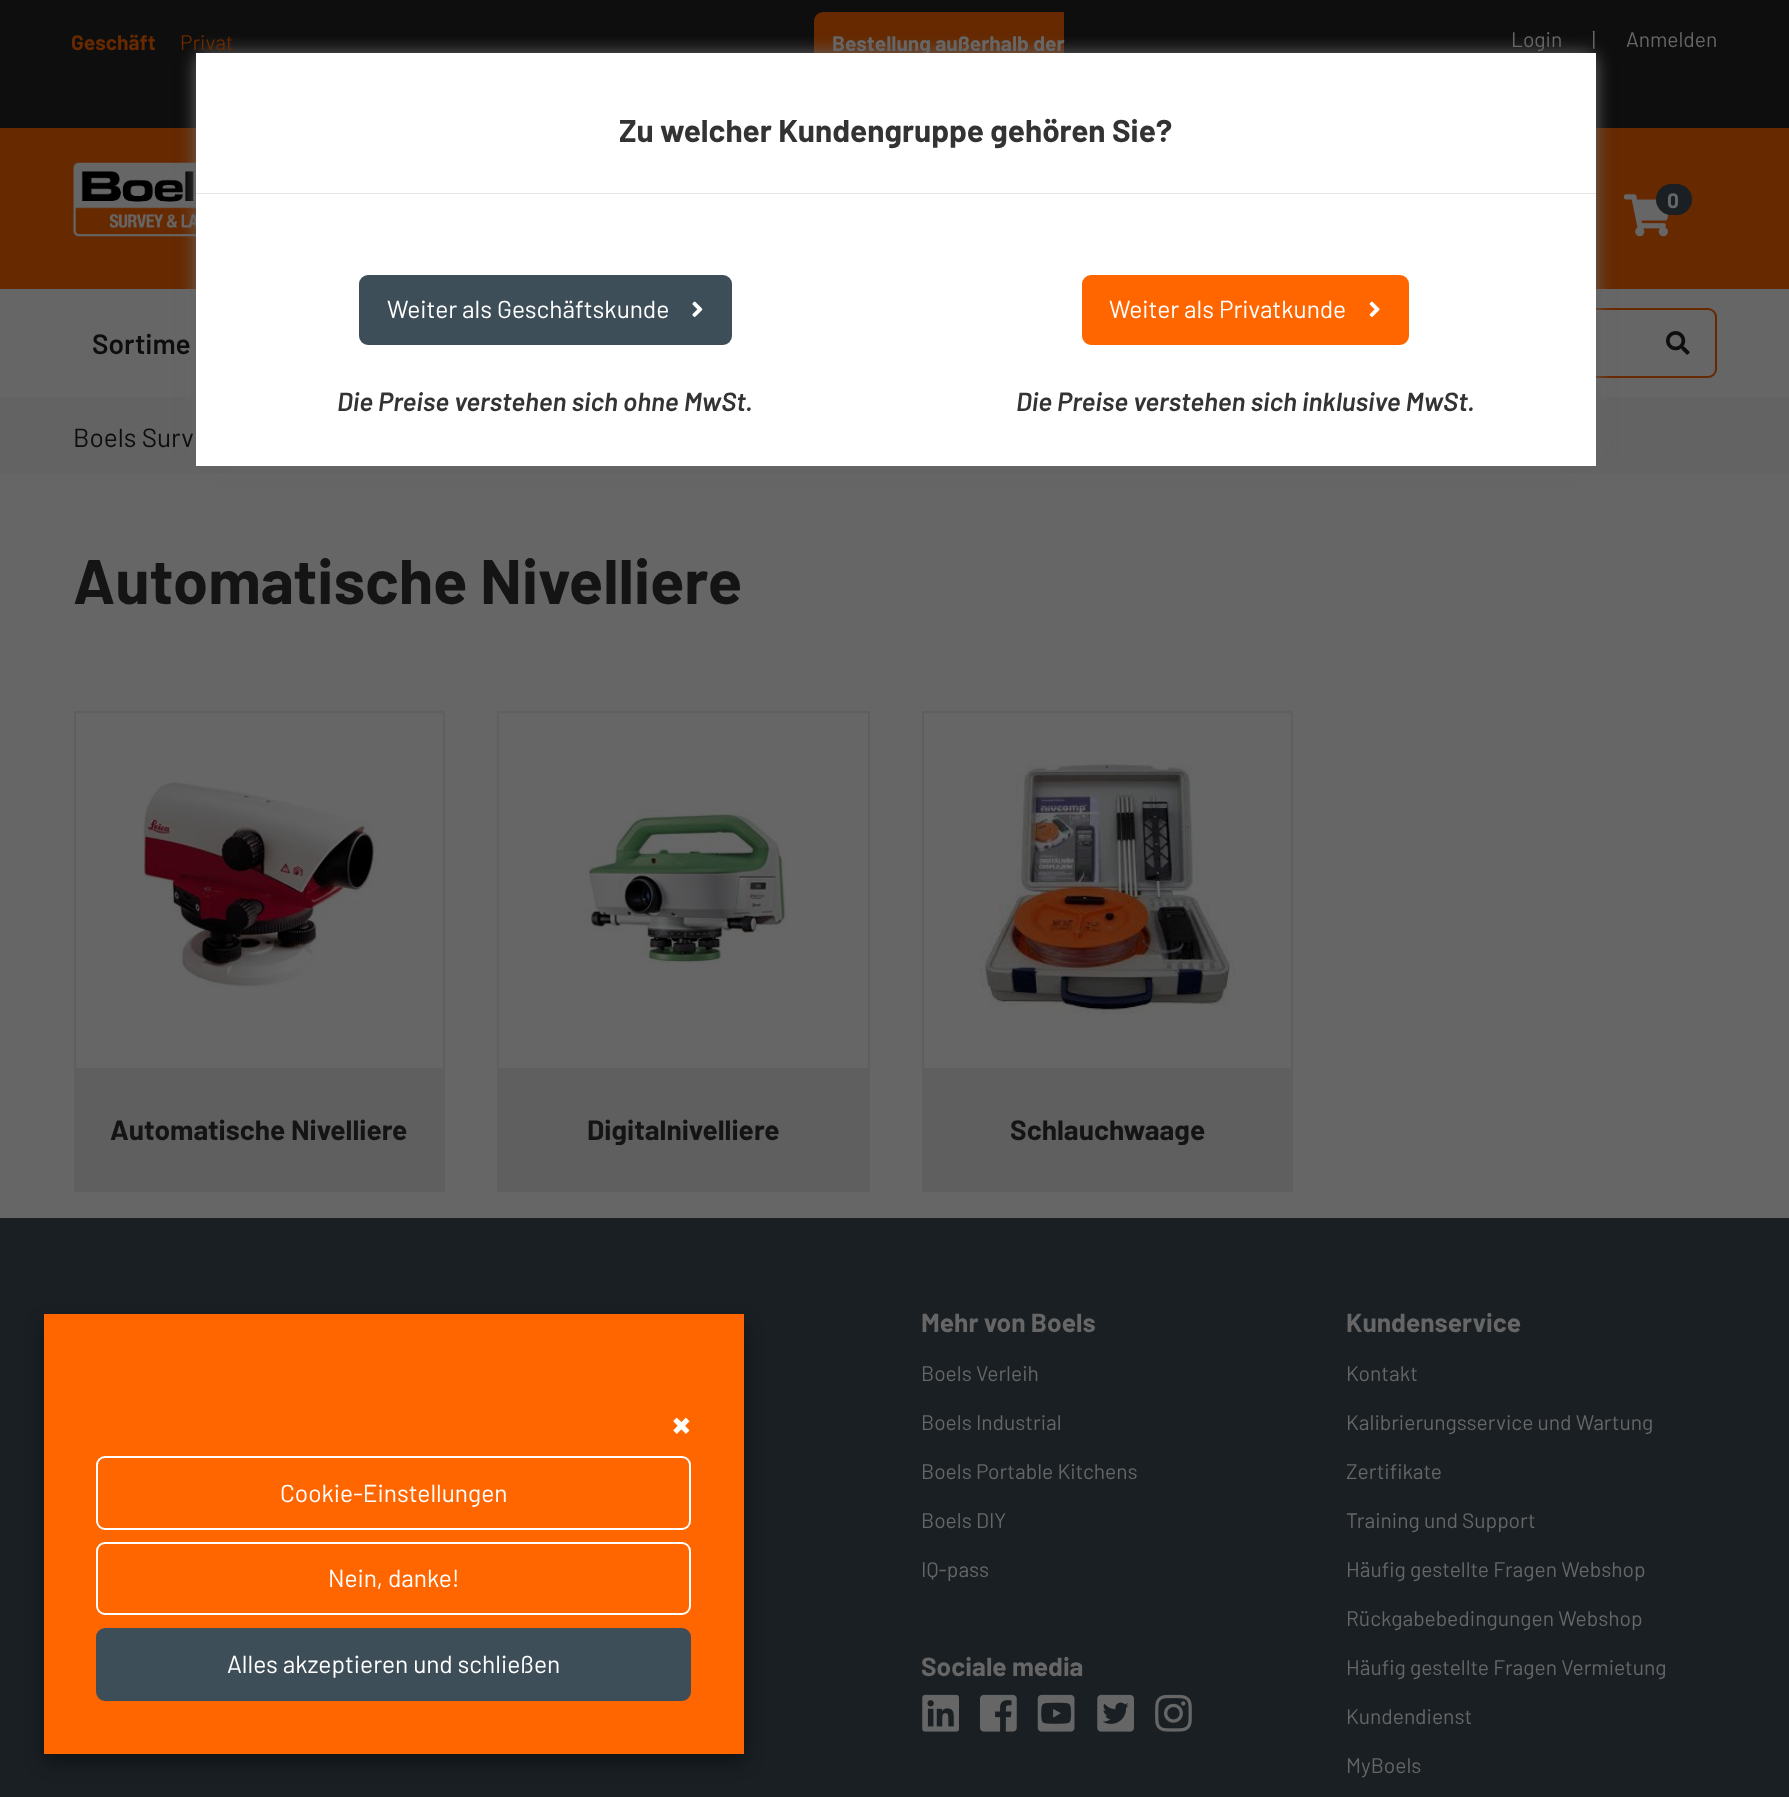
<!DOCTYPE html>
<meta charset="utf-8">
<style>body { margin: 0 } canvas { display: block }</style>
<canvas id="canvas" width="1789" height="1797"></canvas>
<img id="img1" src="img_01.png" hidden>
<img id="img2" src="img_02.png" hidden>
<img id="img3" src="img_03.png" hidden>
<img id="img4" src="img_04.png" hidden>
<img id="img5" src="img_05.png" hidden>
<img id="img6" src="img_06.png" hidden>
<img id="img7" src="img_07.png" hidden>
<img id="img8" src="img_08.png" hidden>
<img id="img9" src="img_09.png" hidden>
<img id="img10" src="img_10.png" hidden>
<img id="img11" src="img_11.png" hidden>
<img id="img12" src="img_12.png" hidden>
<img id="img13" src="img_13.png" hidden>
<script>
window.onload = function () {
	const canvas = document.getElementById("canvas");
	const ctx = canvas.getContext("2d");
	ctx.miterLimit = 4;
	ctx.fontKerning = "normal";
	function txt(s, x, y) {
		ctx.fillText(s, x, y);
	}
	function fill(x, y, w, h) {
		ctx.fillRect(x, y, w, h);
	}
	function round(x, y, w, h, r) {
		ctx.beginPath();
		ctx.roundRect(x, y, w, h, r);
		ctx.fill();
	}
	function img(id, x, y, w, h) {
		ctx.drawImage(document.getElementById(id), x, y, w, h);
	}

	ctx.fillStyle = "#666666";
	fill(0, 0, 1789, 1797);
	ctx.fillStyle = "#0E0E0E";
	fill(0, 0, 1789, 128);
	ctx.fillStyle = "#662900";
	ctx.beginPath();
	ctx.roundRect(814, 12, 250, 60, [9, 0, 0, 9]);
	ctx.fill();
	fill(0, 128, 1789, 161);
	img("img1", 73, 162, 123, 75);
	img("img2", 1624, 194, 45, 43);
	ctx.fillStyle = "#191F23";
	round(1656, 184, 36, 31, 15.5);
	ctx.beginPath();
	ctx.roundRect(1203, 309, 513, 68, 8);
	ctx.strokeStyle = "#662900";
	ctx.lineWidth = 2;
	ctx.stroke();
	img("img3", 1666, 331, 24, 24);
	ctx.fillStyle = "#636363";
	fill(0, 397, 1789, 77);
	ctx.fillStyle = "#666666";
	ctx.filter = "blur(9px)";
	ctx.beginPath();
	ctx.roundRect(196, 53, 1400, 413, 11);
	ctx.fill();
	ctx.filter = "none";
	ctx.fillStyle = "#E5E5E5";
	fill(196, 193, 1400, 1);
	ctx.fillStyle = "#FFFFFF";
	fill(196, 194, 1400, 272);
	ctx.fillStyle = "#3E4E58";
	ctx.beginPath();
	ctx.roundRect(360, 276, 371, 68, 8);
	ctx.fill();
	ctx.strokeStyle = "#3E4E58";
	ctx.stroke();
	img("img4", 692, 301, 11, 16);
	ctx.fillStyle = "#FF6600";
	ctx.beginPath();
	ctx.roundRect(1083, 276, 325, 68, 8);
	ctx.fill();
	ctx.strokeStyle = "#FF6600";
	ctx.stroke();
	img("img5", 1369, 301, 11, 16);
	ctx.strokeStyle = "#5F5F5F";
	ctx.strokeRect(75, 712, 369, 479);
	img("img6", 143, 779, 237, 208);
	ctx.fillStyle = "#5F5F5F";
	fill(76, 1068, 367, 122);
	ctx.strokeRect(498, 712, 371, 479);
	img("img7", 585, 806, 202, 159);
	fill(499, 1068, 369, 122);
	ctx.strokeRect(923, 712, 369, 479);
	img("img8", 980, 760, 255, 255);
	fill(924, 1068, 367, 122);
	ctx.fillStyle = "#191F23";
	fill(0, 1218, 1789, 579);
	ctx.fillStyle = "rgba(0, 0, 0, 0.4)";
	ctx.filter = "blur(9px)";
	ctx.beginPath();
	ctx.rect(44, 1323, 700, 439);
	ctx.fill();
	ctx.filter = "none";
	ctx.fillStyle = "#FF6600";
	fill(44, 1314, 700, 440);
	ctx.beginPath();
	ctx.roundRect(97, 1457, 593, 72, 8);
	ctx.strokeStyle = "#FFFFFF";
	ctx.stroke();
	ctx.beginPath();
	ctx.roundRect(97, 1543, 593, 71, 8);
	ctx.stroke();
	ctx.fillStyle = "#3E4E58";
	ctx.beginPath();
	ctx.roundRect(97, 1629, 593, 71, 8);
	ctx.fill();
	ctx.strokeStyle = "#3E4E58";
	ctx.stroke();
	img("img9", 922, 1694, 37, 38);
	img("img10", 980, 1694, 37, 38);
	img("img11", 1037, 1694, 38, 38);
	img("img12", 1097, 1694, 37, 38);
	img("img13", 1155, 1694, 37, 38);
	ctx.font = "bold 21px Barlow";
	ctx.fillStyle = "#662900";
	txt("Geschäft", 71, 50);
	ctx.font = "21px Barlow";
	txt("Privat", 180, 50);
	ctx.font = "bold 21px Barlow";
	ctx.fillStyle = "#666666";
	txt("Bestellung außerhalb der", 832, 51);
	ctx.font = "21px Barlow";
	txt("Login", 1511, 47);
	txt("|", 1592, 47);
	txt("Anmelden", 1626, 47);
	ctx.font = "bold 21px Barlow";
	txt("0", 1667, 208);
	ctx.font = "600 28px Barlow";
	ctx.fillStyle = "#0D0D0D";
	txt("Sortime", 92, 354);
	ctx.fillStyle = "#FFFFFF";
	fill(196, 53, 1400, 140);
	ctx.font = "bold 31.5px Barlow";
	ctx.fillStyle = "#333333";
	txt("Zu welcher Kundengruppe gehören Sie?", 619, 142);
	ctx.font = "24.5px Barlow";
	ctx.fillStyle = "#FFFFFF";
	txt("Weiter als Geschäftskunde", 387, 318);
	ctx.font = "italic 600 26.25px Barlow";
	ctx.fillStyle = "#333333";
	txt("Die Preise verstehen sich ohne MwSt.", 337, 411);
	ctx.font = "24.5px Barlow";
	ctx.fillStyle = "#FFFFFF";
	txt("Weiter als Privatkunde", 1109, 318);
	ctx.font = "italic 600 26.25px Barlow";
	ctx.fillStyle = "#333333";
	txt("Die Preise verstehen sich inklusive MwSt.", 1016, 411);
	ctx.font = "26.25px Barlow";
	ctx.fillStyle = "#0D0D0D";
	txt("Boels Surv", 73, 447);
	ctx.font = "bold 63px Barlow";
	ctx.fillStyle = "#141414";
	txt("Automatische Nivelliere", 73, 604);
	ctx.font = "bold 28px Barlow";
	txt("Automatische Nivelliere", 110, 1140);
	ctx.save();
	ctx.beginPath();
	ctx.rect(499, 1113, 369, 32);
	ctx.clip();
	txt("Digitalnivelliere", 587, 1140);
	ctx.restore();
	ctx.save();
	ctx.beginPath();
	ctx.rect(924, 1113, 368, 32);
	ctx.clip();
	txt("Schlauchwaage", 1010, 1140);
	ctx.restore();
	ctx.font = "bold 42px Barlow";
	ctx.fillStyle = "#FFFFFF";
	txt("×", 672, 1439);
	ctx.font = "24.5px Barlow";
	txt("Cookie-Einstellungen", 280, 1502);
	txt("Nein, danke!", 328, 1587);
	txt("Alles akzeptieren und schließen", 227, 1673);
	ctx.font = "bold 26.25px Barlow";
	ctx.fillStyle = "#666666";
	txt("Mehr von Boels", 921, 1332);
	ctx.font = "21px Barlow";
	txt("Boels Verleih", 921, 1381);
	txt("Boels Industrial", 921, 1430);
	txt("Boels Portable Kitchens", 921, 1479);
	txt("Boels DIY", 921, 1528);
	txt("IQ-pass", 921, 1577);
	ctx.font = "bold 26.25px Barlow";
	txt("Sociale media", 921, 1676);
	txt("Kundenservice", 1346, 1332);
	ctx.font = "21px Barlow";
	txt("Kontakt", 1346, 1381);
	txt("Kalibrierungsservice und Wartung", 1346, 1430);
	txt("Zertifikate", 1346, 1479);
	txt("Training und Support", 1346, 1528);
	txt("Häufig gestellte Fragen Webshop", 1346, 1577);
	txt("Rückgabebedingungen Webshop", 1346, 1626);
	txt("Häufig gestellte Fragen Vermietung", 1346, 1675);
	txt("Kundendienst", 1346, 1724);
	txt("MyBoels", 1346, 1773);
};
</script>
